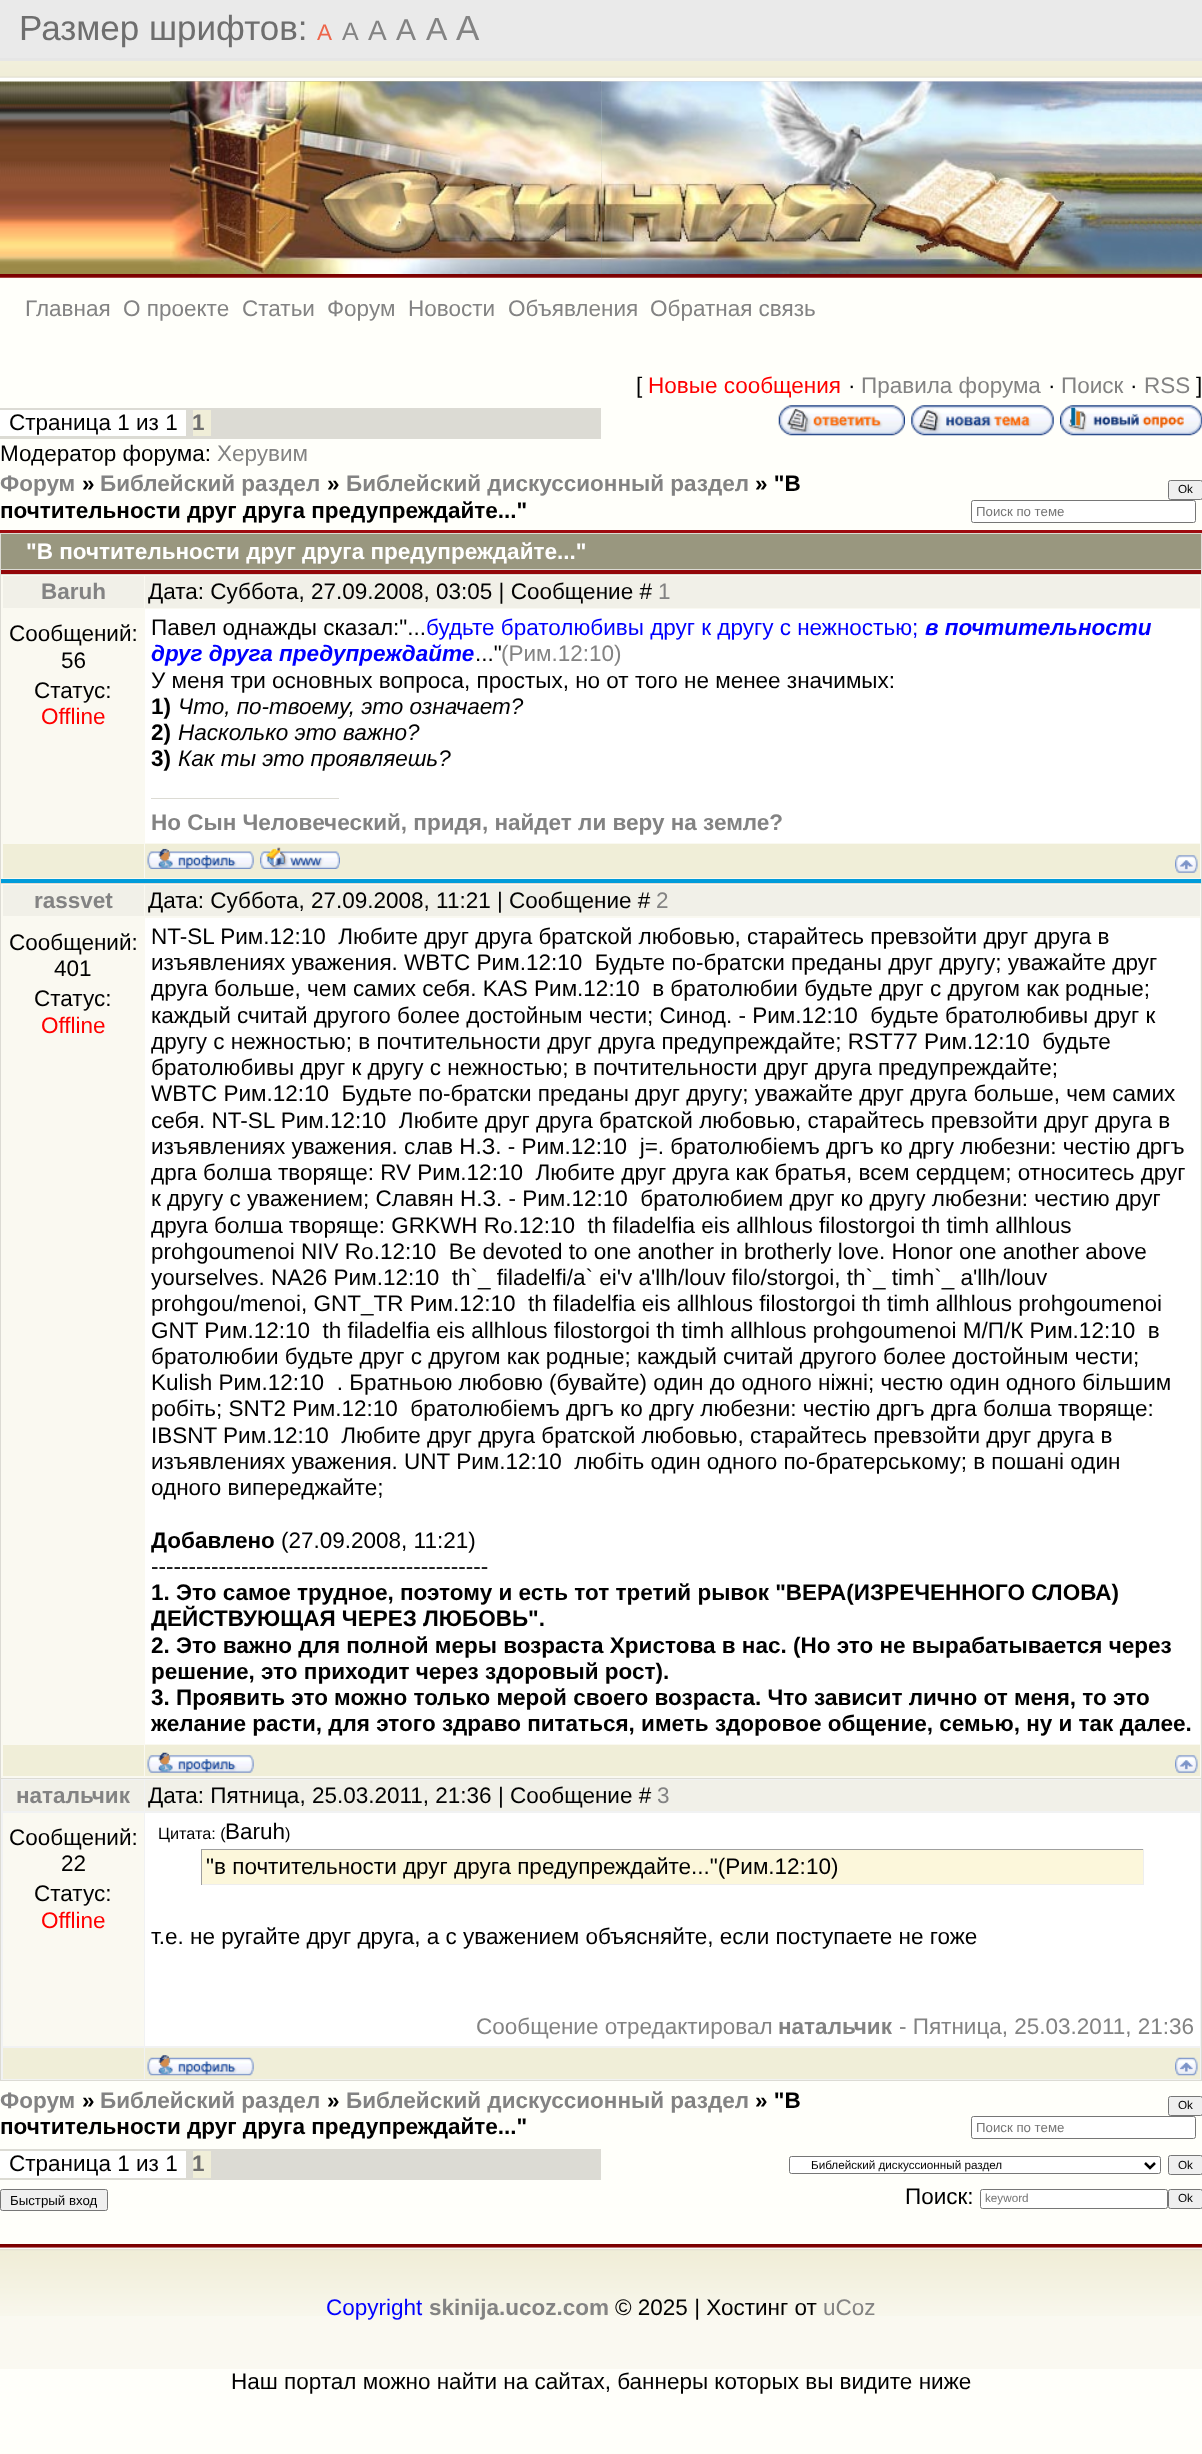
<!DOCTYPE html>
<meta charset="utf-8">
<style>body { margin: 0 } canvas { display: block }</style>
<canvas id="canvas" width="1202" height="2454"></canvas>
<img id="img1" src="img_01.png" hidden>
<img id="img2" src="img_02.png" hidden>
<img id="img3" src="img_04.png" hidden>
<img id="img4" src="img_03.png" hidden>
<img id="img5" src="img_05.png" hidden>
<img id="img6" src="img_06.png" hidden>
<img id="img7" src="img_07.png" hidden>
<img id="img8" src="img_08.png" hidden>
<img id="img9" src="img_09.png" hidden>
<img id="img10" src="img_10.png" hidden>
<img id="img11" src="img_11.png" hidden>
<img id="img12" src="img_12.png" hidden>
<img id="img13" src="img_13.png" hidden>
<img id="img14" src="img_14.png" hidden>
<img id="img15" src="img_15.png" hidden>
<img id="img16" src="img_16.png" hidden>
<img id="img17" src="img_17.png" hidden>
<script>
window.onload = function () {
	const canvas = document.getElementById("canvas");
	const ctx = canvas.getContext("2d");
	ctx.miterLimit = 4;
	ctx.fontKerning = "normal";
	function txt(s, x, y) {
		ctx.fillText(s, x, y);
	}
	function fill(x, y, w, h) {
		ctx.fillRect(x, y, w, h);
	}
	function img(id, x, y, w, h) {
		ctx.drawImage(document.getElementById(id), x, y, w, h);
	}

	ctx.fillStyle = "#FFFFFA";
	fill(0, 0, 1202, 2454);
	ctx.fillStyle = "#EAEAEA";
	fill(0, 0, 1202, 58);
	ctx.fillStyle = "#E6E6E6";
	fill(0, 58, 1202, 3);
	img("img1", 0, 61, 1202, 18);
	img("img2", 0, 81, 602, 193);
	img("img3", 601, 81, 601, 193);
	img("img4", 170, 81, 432, 193);
	img("img5", 601, 81, 528, 193);
	img("img6", 0, 274, 1202, 4);
	ctx.fillStyle = "#DCDBD4";
	fill(0, 408, 601, 31);
	ctx.fillStyle = "#FFFFFF";
	fill(0, 410, 186, 26);
	ctx.fillStyle = "#F0EED8";
	fill(193, 410, 18, 26);
	img("img7", 778, 405, 127, 31);
	img("img8", 911, 405, 143, 31);
	img("img9", 1060, 405, 142, 31);
	ctx.fillStyle = "#EFEFEF";
	ctx.beginPath();
	ctx.roundRect(1168.5, 480.5, 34, 19, 2);
	ctx.fill();
	ctx.strokeStyle = "#767676";
	ctx.stroke();
	ctx.fillStyle = "#FFFFFF";
	ctx.beginPath();
	ctx.roundRect(971.5, 500.5, 224, 22, 2);
	ctx.fill();
	ctx.stroke();
	ctx.fillStyle = "#DCDBD4";
	fill(0, 533, 1202, 1548);
	ctx.fillStyle = "#9E0B0F";
	fill(0, 530, 1202, 3);
	ctx.fillStyle = "#99977F";
	fill(1, 534, 1200, 35);
	ctx.fillStyle = "#93070A";
	fill(1, 570, 1200, 4);
	ctx.fillStyle = "#FAF9F1";
	fill(1, 575, 1200, 304);
	ctx.fillStyle = "#009CDA";
	fill(1, 879, 1200, 4);
	ctx.fillStyle = "#F1F0E8";
	fill(3, 576, 141, 32);
	fill(145, 576, 1055, 32);
	ctx.fillStyle = "#FFFFFF";
	fill(145, 609, 1055, 234);
	ctx.fillStyle = "#DCDBD4";
	fill(151, 798, 188, 1);
	ctx.fillStyle = "#F0EED8";
	fill(3, 844, 141, 34);
	fill(145, 844, 1055, 34);
	img("img10", 147, 848, 107, 21);
	img("img11", 260, 847, 80, 22);
	img("img12", 1175, 855, 23, 18);
	ctx.fillStyle = "#FAF9F1";
	fill(1, 884, 1200, 894);
	ctx.fillStyle = "#F1F0E8";
	fill(3, 885, 141, 31);
	fill(145, 885, 1055, 31);
	ctx.fillStyle = "#FFFFFF";
	fill(145, 918, 1055, 826);
	ctx.fillStyle = "#F0EED8";
	fill(3, 1745, 141, 31);
	fill(145, 1745, 1055, 31);
	img("img13", 147, 1752, 107, 21);
	img("img12", 1175, 1755, 23, 18);
	ctx.fillStyle = "#F1F2F3";
	fill(1, 1779, 1200, 301);
	ctx.fillStyle = "#F1F0E8";
	fill(3, 1780, 141, 31);
	fill(145, 1780, 1055, 31);
	ctx.fillStyle = "#FAF9F1";
	fill(3, 1813, 141, 233);
	ctx.fillStyle = "#FFFFFF";
	fill(145, 1813, 1055, 233);
	ctx.fillStyle = "#FCF7DB";
	fill(202, 1850, 941, 34);
	ctx.fillStyle = "#9F9F9F";
	fill(201, 1849, 943, 1);
	ctx.fillStyle = "#EEEEEE";
	fill(1143, 1849, 1, 36);
	fill(201, 1884, 943, 1);
	ctx.fillStyle = "#9F9F9F";
	fill(201, 1849, 1, 36);
	ctx.fillStyle = "#F0EED8";
	fill(3, 2048, 141, 31);
	fill(145, 2048, 1055, 31);
	img("img14", 147, 2055, 107, 21);
	img("img15", 1175, 2057, 23, 19);
	ctx.fillStyle = "#EFEFEF";
	ctx.beginPath();
	ctx.roundRect(1168.5, 2096.5, 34, 19, 2);
	ctx.fill();
	ctx.stroke();
	ctx.fillStyle = "#FFFFFF";
	ctx.beginPath();
	ctx.roundRect(971.5, 2116.5, 224, 22, 2);
	ctx.fill();
	ctx.stroke();
	ctx.fillStyle = "#DCDBD4";
	fill(0, 2149, 601, 31);
	ctx.fillStyle = "#FFFFFF";
	fill(0, 2151, 186, 27);
	ctx.fillStyle = "#F0EED8";
	fill(193, 2151, 18, 27);
	ctx.fillStyle = "#FFFFFF";
	ctx.beginPath();
	ctx.roundRect(789.5, 2156.5, 371, 17, 2);
	ctx.fill();
	ctx.stroke();
	ctx.beginPath();
	ctx.moveTo(1145, 2163);
	ctx.lineTo(1150, 2168);
	ctx.lineTo(1155, 2163);
	ctx.strokeStyle = "#000000";
	ctx.lineWidth = 2.5;
	ctx.stroke();
	ctx.fillStyle = "#EFEFEF";
	ctx.beginPath();
	ctx.roundRect(1168.5, 2155.5, 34, 19, 2);
	ctx.fill();
	ctx.strokeStyle = "#767676";
	ctx.lineWidth = 1;
	ctx.stroke();
	ctx.beginPath();
	ctx.roundRect(0.5, 2189.5, 107, 21, 2);
	ctx.fill();
	ctx.stroke();
	ctx.fillStyle = "#FFFFFF";
	ctx.beginPath();
	ctx.roundRect(980.5, 2189.5, 187, 19, 2);
	ctx.fill();
	ctx.stroke();
	ctx.fillStyle = "#EFEFEF";
	ctx.beginPath();
	ctx.roundRect(1168.5, 2189.5, 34, 19, 2);
	ctx.fill();
	ctx.stroke();
	img("img16", 0, 2244, 1202, 4);
	ctx.fillStyle = "#FAF9F1";
	fill(0, 2316, 1202, 53);
	img("img17", 0, 2247, 1202, 69);
	ctx.font = "35px Liberation Sans";
	ctx.fillStyle = "#6E6E6E";
	txt("Размер шрифтов:", 19, 40);
	ctx.font = "22.5px Liberation Sans";
	ctx.fillStyle = "#ED664B";
	txt("A", 317, 40);
	ctx.font = "25px Liberation Sans";
	ctx.fillStyle = "#838383";
	txt("A", 342, 40);
	ctx.font = "28px Liberation Sans";
	txt("A", 368, 40);
	ctx.font = "30px Liberation Sans";
	txt("A", 396, 40);
	ctx.font = "32px Liberation Sans";
	txt("A", 426, 40);
	ctx.font = "35px Liberation Sans";
	txt("A", 456, 40);
	ctx.font = "22.5px Liberation Sans";
	txt("Главная", 25, 316);
	txt("О проекте", 123, 316);
	txt("Статьи", 242, 316);
	txt("Форум", 327, 316);
	txt("Новости", 408, 316);
	txt("Объявления", 508, 316);
	txt("Обратная связь", 650, 316);
	ctx.fillStyle = "#000000";
	txt("[", 636, 393);
	ctx.fillStyle = "#FF0000";
	txt("Новые сообщения", 648, 393);
	ctx.fillStyle = "#000000";
	txt("·", 848, 393);
	ctx.fillStyle = "#838383";
	txt("Правила форума", 861, 393);
	ctx.fillStyle = "#000000";
	txt("·", 1048, 393);
	ctx.fillStyle = "#838383";
	txt("Поиск", 1061, 393);
	ctx.fillStyle = "#000000";
	txt("·", 1130, 393);
	ctx.fillStyle = "#838383";
	txt("RSS", 1144, 393);
	ctx.fillStyle = "#000000";
	txt("]", 1196, 393);
	txt("Страница 1 из 1", 9, 430);
	ctx.font = "bold 22.5px Liberation Sans";
	ctx.fillStyle = "#6E6E6E";
	txt("1", 192, 430);
	ctx.font = "22.5px Liberation Sans";
	ctx.fillStyle = "#000000";
	txt("Модератор форума:", 0, 461);
	ctx.fillStyle = "#838383";
	txt("Херувим", 217, 461);
	ctx.font = "bold 22.5px Liberation Sans";
	txt("Форум", 0, 491);
	ctx.fillStyle = "#000000";
	txt("»", 82, 491);
	ctx.fillStyle = "#838383";
	txt("Библейский раздел", 100, 491);
	ctx.fillStyle = "#000000";
	txt("»", 327, 491);
	ctx.fillStyle = "#838383";
	txt("Библейский дискуссионный раздел", 346, 491);
	ctx.fillStyle = "#000000";
	txt("» \"В", 755, 491);
	txt("почтительности друг друга предупреждайте...\"", 0, 518);
	ctx.font = "11.7px Liberation Sans";
	txt("Ok", 1178, 493);
	ctx.font = "13.25px Liberation Sans";
	ctx.fillStyle = "#757575";
	txt("Поиск по теме", 976, 516);
	ctx.font = "bold 22.5px Liberation Sans";
	ctx.fillStyle = "#FFFFFF";
	txt("\"В почтительности друг друга предупреждайте...\"", 26, 559);
	ctx.fillStyle = "#838383";
	txt("Baruh", 41, 599);
	ctx.font = "22.5px Liberation Sans";
	ctx.fillStyle = "#000000";
	txt("Дата: Суббота, 27.09.2008, 03:05 | Сообщение #", 148, 599);
	ctx.fillStyle = "#838383";
	txt("1", 658, 599);
	ctx.fillStyle = "#000000";
	txt("Сообщений:", 9, 641);
	txt("56", 61, 668);
	txt("Статус:", 34, 698);
	ctx.fillStyle = "#FF0000";
	txt("Offline", 41, 724);
	ctx.fillStyle = "#000000";
	txt("Павел однажды сказал:\"...", 151, 635);
	ctx.fillStyle = "#0000FF";
	txt("будьте братолюбивы друг к другу с нежностью;", 426, 635);
	ctx.font = "italic bold 22.5px Liberation Sans";
	txt("в почтительности", 925, 635);
	txt("друг друга предупреждайте", 151, 661);
	ctx.font = "22.5px Liberation Sans";
	ctx.fillStyle = "#000000";
	txt("...\"", 475, 661);
	ctx.fillStyle = "#838383";
	txt("(Рим.12:10)", 501, 661);
	ctx.fillStyle = "#000000";
	txt("У меня три основных вопроса, простых, но от того не менее значимых:", 151, 688);
	ctx.font = "bold 22.5px Liberation Sans";
	txt("1)", 151, 714);
	ctx.font = "italic 22.5px Liberation Sans";
	txt("Что, по-твоему, это означает?", 178, 714);
	ctx.font = "bold 22.5px Liberation Sans";
	txt("2)", 151, 740);
	ctx.font = "italic 22.5px Liberation Sans";
	txt("Насколько это важно?", 178, 740);
	ctx.font = "bold 22.5px Liberation Sans";
	txt("3)", 151, 766);
	ctx.font = "italic 22.5px Liberation Sans";
	txt("Как ты это проявляешь?", 178, 766);
	ctx.font = "bold 22.5px Liberation Sans";
	ctx.fillStyle = "#838383";
	txt("Но Сын Человеческий, придя, найдет ли веру на земле?", 151, 830);
	txt("rassvet", 34, 908);
	ctx.font = "22.5px Liberation Sans";
	ctx.fillStyle = "#000000";
	txt("Дата: Суббота, 27.09.2008, 11:21 | Сообщение #", 148, 908);
	ctx.fillStyle = "#838383";
	txt("2", 656, 908);
	ctx.fillStyle = "#000000";
	txt("Сообщений:", 9, 950);
	txt("401", 54, 976);
	txt("Статус:", 34, 1006);
	ctx.fillStyle = "#FF0000";
	txt("Offline", 41, 1033);
	ctx.fillStyle = "#000000";
	txt("NT-SL Рим.12:10  Любите друг друга братской любовью, старайтесь превзойти друг друга в", 151, 944);
	txt("изъявлениях уважения. WBTC Рим.12:10  Будьте по-братски преданы друг другу; уважайте друг", 151, 970);
	txt("друга больше, чем самих себя. KAS Рим.12:10  в братолюбии будьте друг с другом как родные;", 151, 996);
	txt("каждый считай другого более достойным чести; Cинод. - Рим.12:10  будьте братолюбивы друг к", 151, 1023);
	txt("другу с нежностью; в почтительности друг друга предупреждайте; RST77 Рим.12:10  будьте", 151, 1049);
	txt("братолюбивы друг к другу с нежностью; в почтительности друг друга предупреждайте;", 151, 1075);
	txt("WBTC Рим.12:10  Будьте по-братски преданы друг другу; уважайте друг друга больше, чем самих", 151, 1101);
	txt("себя. NT-SL Рим.12:10  Любите друг друга братской любовью, старайтесь превзойти друг друга в", 151, 1128);
	txt("изъявлениях уважения. слав Н.З. - Рим.12:10  j=. братолюбiемъ дргъ ко дргу любезни: честiю дргъ", 151, 1154);
	txt("дрга болша творяще: RV Рим.12:10  Любите друг друга как братья, всем сердцем; относитесь друг", 151, 1180);
	txt("к другу с уважением; Славян Н.З. - Рим.12:10  братолюбием друг ко другу любезни: честию друг", 151, 1206);
	txt("друга болша творяще: GRKWH Ro.12:10  th filadelfia eis allhlous filostorgoi th timh allhlous", 151, 1233);
	txt("prohgoumenoi NIV Ro.12:10  Be devoted to one another in brotherly love. Honor one another above", 151, 1259);
	txt("yourselves. NA26 Рим.12:10  th`_ filadelfi/a` ei'v a'llh/louv filo/storgoi, th`_ timh`_ a'llh/louv", 151, 1285);
	txt("prohgou/menoi, GNT_TR Рим.12:10  th filadelfia eis allhlous filostorgoi th timh allhlous prohgoumenoi", 151, 1311);
	txt("GNT Рим.12:10  th filadelfia eis allhlous filostorgoi th timh allhlous prohgoumenoi М/П/К Рим.12:10  в", 151, 1338);
	txt("братолюбии будьте друг с другом как родные; каждый считай другого более достойным чести;", 151, 1364);
	txt("Kulish Рим.12:10  . Братньою любовю (бувайте) один до одного ніжні; честю один одного більшим", 151, 1390);
	txt("робіть; SNT2 Рим.12:10  братолюбiемъ дргъ ко дргу любезни: честiю дргъ дрга болша творяще:", 151, 1416);
	txt("IBSNT Рим.12:10  Любите друг друга братской любовью, старайтесь превзойти друг друга в", 151, 1443);
	txt("изъявлениях уважения. UNT Рим.12:10  любіть один одного по-братерському; в пошані один", 151, 1469);
	txt("одного випереджайте;", 151, 1495);
	ctx.font = "bold 22.5px Liberation Sans";
	txt("Добавлено", 151, 1548);
	ctx.font = "22.5px Liberation Sans";
	txt("(27.09.2008, 11:21)", 281, 1548);
	txt("---------------------------------------------", 151, 1574);
	ctx.font = "bold 22.5px Liberation Sans";
	txt("1. Это самое трудное, поэтому и есть тот третий рывок \"ВЕРА(ИЗРЕЧЕННОГО СЛОВА)", 151, 1600);
	txt("ДЕЙСТВУЮЩАЯ ЧЕРЕЗ ЛЮБОВЬ\".", 151, 1626);
	txt("2. Это важно для полной меры возраста Христова в нас. (Но это не вырабатывается через", 151, 1653);
	txt("решение, это приходит через здоровый рост).", 151, 1679);
	txt("3. Проявить это можно только мерой своего возраста. Что зависит лично от меня, то это", 151, 1705);
	txt("желание расти, для этого здраво питаться, иметь здоровое общение, семью, ну и так далее.", 151, 1731);
	ctx.fillStyle = "#838383";
	txt("натальчик", 16, 1803);
	ctx.font = "22.5px Liberation Sans";
	ctx.fillStyle = "#000000";
	txt("Дата: Пятница, 25.03.2011, 21:36 | Сообщение #", 148, 1803);
	ctx.fillStyle = "#838383";
	txt("3", 657, 1803);
	ctx.fillStyle = "#000000";
	txt("Сообщений:", 9, 1845);
	txt("22", 61, 1871);
	txt("Статус:", 34, 1901);
	ctx.fillStyle = "#FF0000";
	txt("Offline", 41, 1928);
	ctx.font = "16.25px Liberation Sans";
	ctx.fillStyle = "#000000";
	txt("Цитата: (", 158, 1839);
	ctx.font = "22.5px Liberation Sans";
	txt("Baruh", 225, 1839);
	ctx.font = "16.25px Liberation Sans";
	txt(")", 285, 1839);
	ctx.font = "22.5px Liberation Sans";
	txt("\"в почтительности друг друга предупреждайте...\"(Рим.12:10)", 206, 1874);
	txt("т.е. не ругайте друг друга, а с уважением объясняйте, если поступаете не гоже", 151, 1944);
	ctx.fillStyle = "#838383";
	txt("Сообщение отредактировал", 476, 2034);
	ctx.font = "bold 22.5px Liberation Sans";
	txt("натальчик", 778, 2034);
	ctx.font = "22.5px Liberation Sans";
	txt("- Пятница, 25.03.2011, 21:36", 899, 2034);
	ctx.font = "bold 22.5px Liberation Sans";
	txt("Форум", 0, 2108);
	ctx.fillStyle = "#000000";
	txt("»", 82, 2108);
	ctx.fillStyle = "#838383";
	txt("Библейский раздел", 100, 2108);
	ctx.fillStyle = "#000000";
	txt("»", 327, 2108);
	ctx.fillStyle = "#838383";
	txt("Библейский дискуссионный раздел", 346, 2108);
	ctx.fillStyle = "#000000";
	txt("» \"В", 755, 2108);
	txt("почтительности друг друга предупреждайте...\"", 0, 2134);
	ctx.font = "11.7px Liberation Sans";
	txt("Ok", 1178, 2109);
	ctx.font = "13.25px Liberation Sans";
	ctx.fillStyle = "#757575";
	txt("Поиск по теме", 976, 2132);
	ctx.font = "22.5px Liberation Sans";
	ctx.fillStyle = "#000000";
	txt("Страница 1 из 1", 9, 2171);
	ctx.font = "bold 22.5px Liberation Sans";
	ctx.fillStyle = "#6E6E6E";
	txt("1", 192, 2171);
	ctx.font = "11.7px Liberation Sans";
	ctx.fillStyle = "#000000";
	txt("Библейский дискуссионный раздел", 811, 2169);
	txt("Ok", 1178, 2169);
	ctx.font = "13.25px Liberation Sans";
	txt("Быстрый вход", 10, 2205);
	ctx.font = "22.5px Liberation Sans";
	txt("Поиск:", 905, 2204);
	ctx.font = "11.7px Liberation Sans";
	ctx.fillStyle = "#757575";
	txt("keyword", 985, 2202);
	ctx.fillStyle = "#000000";
	txt("Ok", 1178, 2202);
	ctx.font = "22.5px Liberation Sans";
	ctx.fillStyle = "#0000FF";
	txt("Copyright", 326, 2315);
	ctx.font = "bold 22.5px Liberation Sans";
	ctx.fillStyle = "#838383";
	txt("skinija.ucoz.com", 429, 2315);
	ctx.font = "22.5px Liberation Sans";
	ctx.fillStyle = "#000000";
	txt("© 2025 | Хостинг от", 615, 2315);
	ctx.fillStyle = "#838383";
	txt("uCoz", 823, 2315);
	ctx.fillStyle = "#000000";
	txt("Наш портал можно найти на сайтах, баннеры которых вы видите ниже", 231, 2389);
};
</script>
